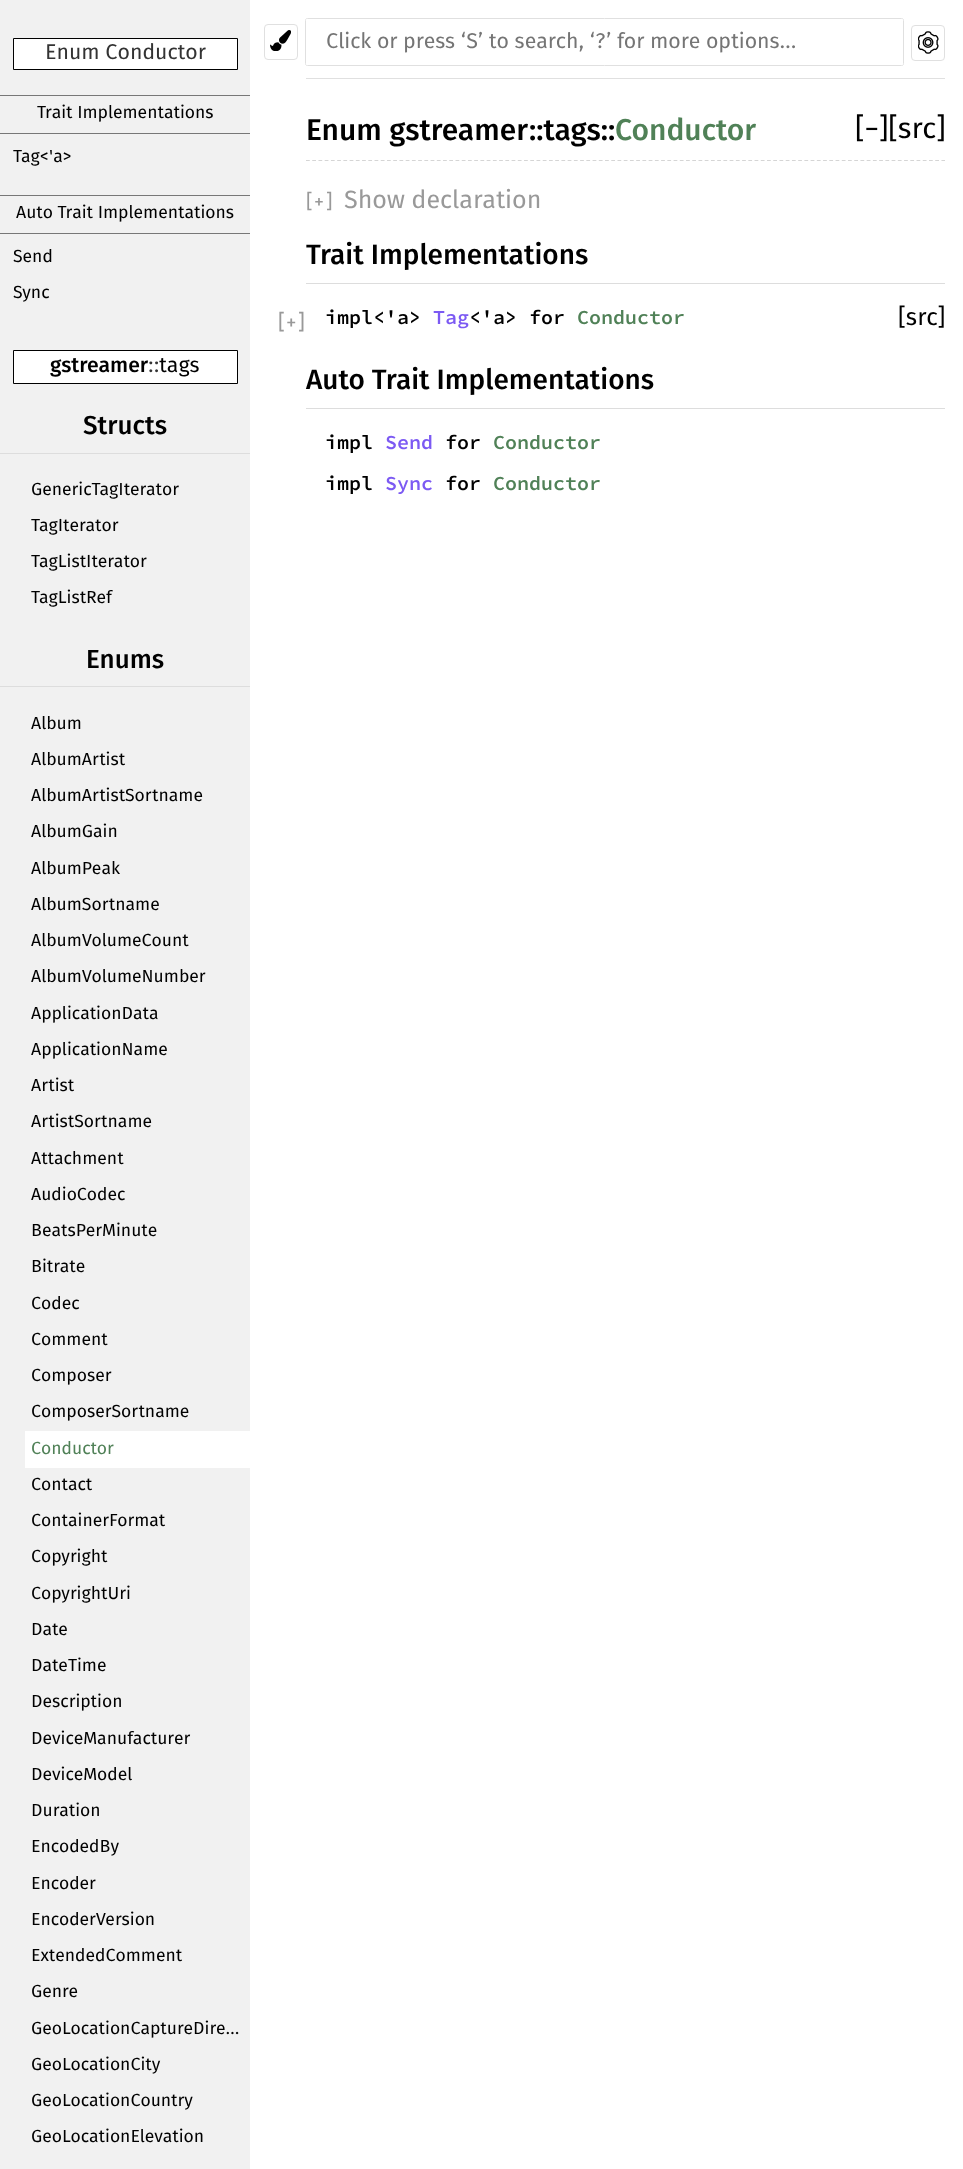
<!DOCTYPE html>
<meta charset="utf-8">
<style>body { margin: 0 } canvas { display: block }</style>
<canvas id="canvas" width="963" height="2169"></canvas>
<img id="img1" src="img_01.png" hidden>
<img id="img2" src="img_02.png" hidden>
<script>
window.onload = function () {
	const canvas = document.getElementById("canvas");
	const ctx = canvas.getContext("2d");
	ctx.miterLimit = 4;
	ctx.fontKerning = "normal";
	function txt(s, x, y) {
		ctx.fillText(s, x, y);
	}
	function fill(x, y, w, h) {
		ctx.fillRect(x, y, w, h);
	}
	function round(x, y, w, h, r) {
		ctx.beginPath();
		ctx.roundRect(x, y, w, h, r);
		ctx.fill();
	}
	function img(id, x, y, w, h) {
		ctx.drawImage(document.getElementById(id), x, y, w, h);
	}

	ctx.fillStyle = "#FFFFFF";
	fill(0, 0, 963, 2169);
	ctx.fillStyle = "#F1F1F1";
	fill(0, 0, 250, 2169);
	ctx.fillStyle = "#FFFFFF";
	ctx.beginPath();
	ctx.rect(13.5, 38.5, 224, 31);
	ctx.fill();
	ctx.strokeStyle = "#000000";
	ctx.stroke();
	ctx.fillStyle = "#777777";
	fill(0, 95, 250, 1);
	fill(0, 133, 250, 1);
	fill(0, 195, 250, 1);
	fill(0, 233, 250, 1);
	ctx.fillStyle = "#FFFFFF";
	ctx.beginPath();
	ctx.rect(13.5, 350.5, 224, 33);
	ctx.fill();
	ctx.stroke();
	ctx.fillStyle = "#DDDDDD";
	fill(0, 453, 250, 1);
	fill(0, 686, 250, 1);
	ctx.fillStyle = "#FFFFFF";
	fill(25, 1431, 225, 37);
	ctx.beginPath();
	ctx.roundRect(264.5, 24.5, 33, 35, 3.5);
	ctx.strokeStyle = "#E0E0E0";
	ctx.stroke();
	img("img1", 270, 30, 21, 21);
	ctx.fillStyle = "#E0E0E0";
	fill(306, 78, 639, 1);
	ctx.beginPath();
	ctx.roundRect(305.5, 18.5, 598, 47, 2);
	ctx.stroke();
	ctx.fillStyle = "#FFFFFF";
	round(306, 19, 597, 46, 1);
	ctx.beginPath();
	ctx.roundRect(911.5, 25.5, 33, 35, 3.5);
	ctx.stroke();
	img("img2", 918, 31, 21, 23);
	ctx.beginPath();
	ctx.moveTo(306, 160.5);
	ctx.lineTo(945, 160.5);
	ctx.strokeStyle = "#D5D5D5";
	ctx.lineWidth = 1.2;
	ctx.setLineDash([3.75, 2.48]);
	ctx.stroke();
	ctx.fillStyle = "#DDDDDD";
	fill(306, 283, 639, 1);
	fill(306, 408, 639, 1);
	ctx.font = "21.25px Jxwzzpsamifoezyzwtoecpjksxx";
	ctx.fillStyle = "#333333";
	txt("Enum Conductor", 45, 59);
	ctx.font = "17.5px Jxwzzpsamifoezyzwtoecpjksxx";
	ctx.fillStyle = "#000000";
	txt("Trait Implementations", 37, 118);
	txt("Tag<'a>", 13, 162);
	txt("Auto Trait Implementations", 16, 218);
	txt("Send", 13, 262);
	txt("Sync", 13, 298);
	ctx.font = "500 21.25px Fira Sans";
	txt("gstreamer", 50, 372);
	ctx.font = "21.25px Jxwzzpsamifoezyzwtoecpjksxx";
	ctx.fillStyle = "#333333";
	txt("::", 148, 372);
	ctx.fillStyle = "#000000";
	txt("tags", 159, 372);
	ctx.font = "500 26px Fira Sans";
	txt("Structs", 83, 434);
	ctx.font = "17.5px Jxwzzpsamifoezyzwtoecpjksxx";
	txt("GenericTagIterator", 31, 495);
	txt("TagIterator", 31, 531);
	txt("TagListIterator", 31, 567);
	txt("TagListRef", 31, 603);
	ctx.font = "500 26px Fira Sans";
	txt("Enums", 86, 668);
	ctx.font = "17.5px Jxwzzpsamifoezyzwtoecpjksxx";
	txt("Album", 31, 729);
	txt("AlbumArtist", 31, 765);
	txt("AlbumArtistSortname", 31, 801);
	txt("AlbumGain", 31, 837);
	txt("AlbumPeak", 31, 874);
	txt("AlbumSortname", 31, 910);
	txt("AlbumVolumeCount", 31, 946);
	txt("AlbumVolumeNumber", 31, 982);
	txt("ApplicationData", 31, 1019);
	txt("ApplicationName", 31, 1055);
	txt("Artist", 31, 1091);
	txt("ArtistSortname", 31, 1127);
	txt("Attachment", 31, 1164);
	txt("AudioCodec", 31, 1200);
	txt("BeatsPerMinute", 31, 1236);
	txt("Bitrate", 31, 1272);
	txt("Codec", 31, 1309);
	txt("Comment", 31, 1345);
	txt("Composer", 31, 1381);
	txt("ComposerSortname", 31, 1417);
	ctx.fillStyle = "#508157";
	txt("Conductor", 31, 1454);
	ctx.fillStyle = "#000000";
	txt("Contact", 31, 1490);
	txt("ContainerFormat", 31, 1526);
	txt("Copyright", 31, 1562);
	txt("CopyrightUri", 31, 1599);
	txt("Date", 31, 1635);
	txt("DateTime", 31, 1671);
	txt("Description", 31, 1707);
	txt("DeviceManufacturer", 31, 1744);
	txt("DeviceModel", 31, 1780);
	txt("Duration", 31, 1816);
	txt("EncodedBy", 31, 1852);
	txt("Encoder", 31, 1889);
	txt("EncoderVersion", 31, 1925);
	txt("ExtendedComment", 31, 1961);
	txt("Genre", 31, 1997);
	txt("GeoLocationCaptureDire…", 31, 2034);
	txt("GeoLocationCity", 31, 2070);
	txt("GeoLocationCountry", 31, 2106);
	txt("GeoLocationElevation", 31, 2142);
	ctx.font = "21.25px Jxwzzpsamifoezyzwtoecpjksxx";
	ctx.fillStyle = "#757575";
	txt("Click or press ‘S’ to search, ‘?’ for more options…", 326, 48);
	ctx.font = "500 30px Fira Sans";
	ctx.fillStyle = "#000000";
	txt("Enum gstreamer", 306, 140);
	txt("::tags::", 529, 140);
	ctx.fillStyle = "#508157";
	txt("Conductor", 615, 140);
	ctx.font = "29px Jxwzzpsamifoezyzwtoecpjksxx";
	ctx.fillStyle = "#000000";
	txt("[−][src]", 855, 138);
	ctx.font = "20px Jxwzzpsamifoezyzwtoecpjksxx";
	ctx.fillStyle = "#999999";
	txt("[", 306, 208);
	txt("+", 314, 208);
	txt("]", 326, 208);
	ctx.font = "25px Jxwzzpsamifoezyzwtoecpjksxx";
	txt("Show declaration", 344, 208);
	ctx.font = "500 28px Fira Sans";
	ctx.fillStyle = "#000000";
	txt("Trait Implementations", 306, 264);
	ctx.font = "21px Jxwzzpsamifoezyzwtoecpjksxx";
	ctx.fillStyle = "#999999";
	txt("[", 278, 329);
	txt("+", 286, 329);
	txt("]", 298, 329);
	ctx.font = "600 20px Source Code Pro";
	ctx.fillStyle = "#000000";
	txt("impl<'a>", 325, 324);
	ctx.fillStyle = "#7C5AF3";
	txt("Tag", 433, 324);
	ctx.fillStyle = "#000000";
	txt("<'a> for", 469, 324);
	ctx.fillStyle = "#508157";
	txt("Conductor", 577, 324);
	ctx.font = "24px Jxwzzpsamifoezyzwtoecpjksxx";
	ctx.fillStyle = "#000000";
	txt("[src]", 898, 325);
	ctx.font = "500 28px Fira Sans";
	txt("Auto Trait Implementations", 306, 389);
	ctx.font = "600 20px Source Code Pro";
	txt("impl", 325, 449);
	ctx.fillStyle = "#7C5AF3";
	txt("Send", 385, 449);
	ctx.fillStyle = "#000000";
	txt("for", 445, 449);
	ctx.fillStyle = "#508157";
	txt("Conductor", 493, 449);
	ctx.fillStyle = "#000000";
	txt("impl", 325, 490);
	ctx.fillStyle = "#7C5AF3";
	txt("Sync", 385, 490);
	ctx.fillStyle = "#000000";
	txt("for", 445, 490);
	ctx.fillStyle = "#508157";
	txt("Conductor", 493, 490);
};
</script>
